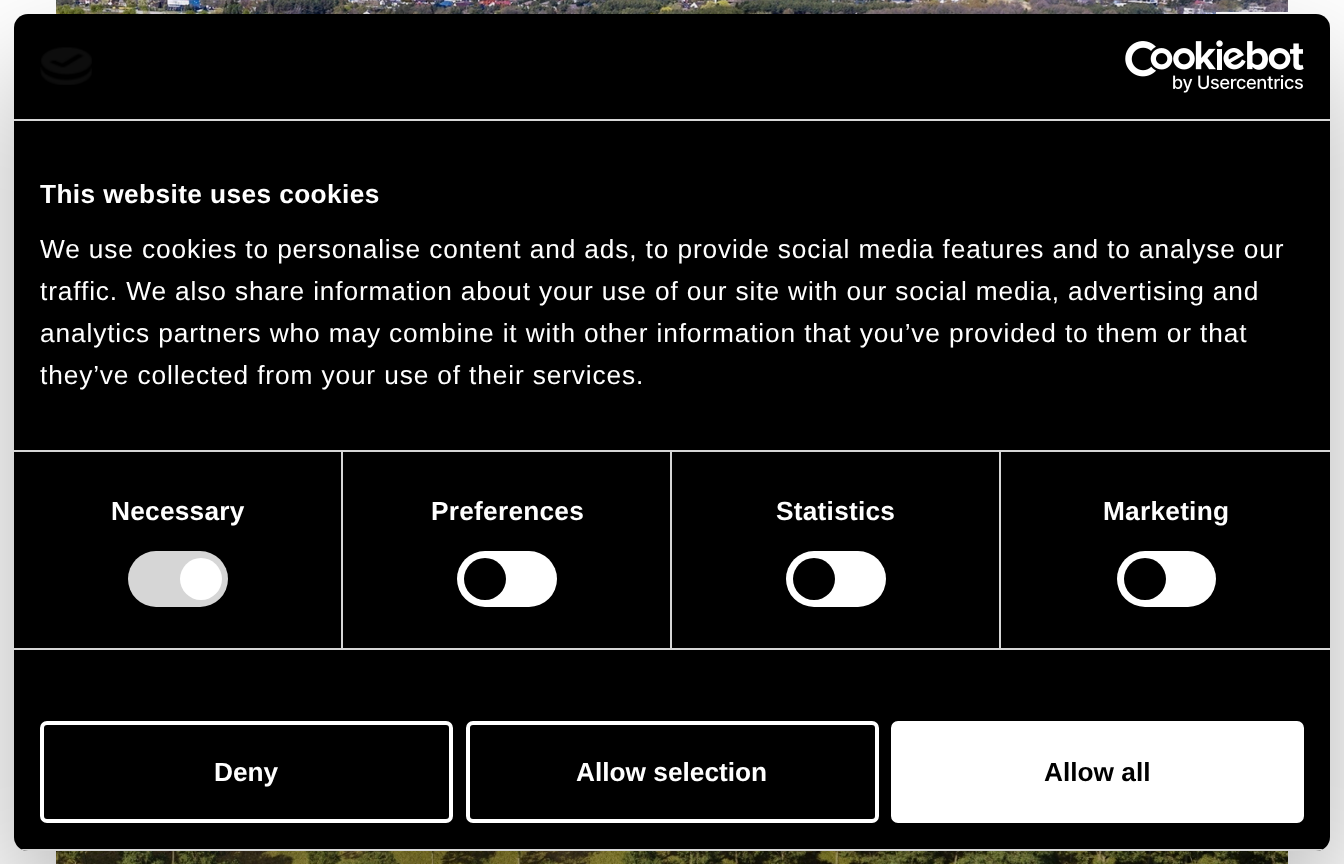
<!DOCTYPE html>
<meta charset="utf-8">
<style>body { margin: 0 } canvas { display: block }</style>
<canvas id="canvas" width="1344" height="864"></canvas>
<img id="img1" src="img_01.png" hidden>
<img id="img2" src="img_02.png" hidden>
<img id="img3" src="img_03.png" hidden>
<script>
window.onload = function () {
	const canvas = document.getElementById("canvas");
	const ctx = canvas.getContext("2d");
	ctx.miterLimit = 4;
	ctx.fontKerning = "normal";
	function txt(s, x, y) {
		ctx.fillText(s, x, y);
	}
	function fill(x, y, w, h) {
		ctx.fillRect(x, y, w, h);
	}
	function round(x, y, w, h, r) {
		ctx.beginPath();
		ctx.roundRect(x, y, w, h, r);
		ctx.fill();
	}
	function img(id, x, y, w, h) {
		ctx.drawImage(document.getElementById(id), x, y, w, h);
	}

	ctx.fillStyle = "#FFFFFF";
	fill(0, 0, 1344, 864);
	img("img1", 56, 0, 1232, 864);
	ctx.strokeStyle = "#FFFFFF";
	ctx.lineWidth = 5;
	ctx.strokeRect(1218.5, 14.5, 83, 83);
	ctx.fillStyle = "rgba(0, 0, 0, 0.3)";
	ctx.filter = "blur(59.5px)";
	ctx.beginPath();
	ctx.roundRect(14, 70, 1316, 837, 14);
	ctx.fill();
	ctx.filter = "none";
	ctx.fillStyle = "#000000";
	round(14, 14, 1316, 837, 14);
	ctx.fillStyle = "#D6D6D6";
	fill(14, 119, 1316, 2);
	img("img2", 40, 47, 52, 38);
	img("img3", 1125, 40, 179, 53);
	fill(14, 450, 1316, 2);
	fill(14, 648, 1316, 2);
	fill(341, 452, 2, 196);
	round(128, 551, 100, 56, 28);
	ctx.fillStyle = "#FFFFFF";
	ctx.beginPath();
	ctx.arc(201, 579, 21, 0, Math.PI * 2);
	ctx.fill();
	ctx.fillStyle = "#D6D6D6";
	fill(670, 452, 2, 196);
	ctx.fillStyle = "#FFFFFF";
	round(457, 551, 100, 56, 28);
	ctx.fillStyle = "#000000";
	ctx.beginPath();
	ctx.arc(485, 579, 21, 0, Math.PI * 2);
	ctx.fill();
	ctx.fillStyle = "#D6D6D6";
	fill(999, 452, 2, 196);
	ctx.fillStyle = "#FFFFFF";
	round(786, 551, 100, 56, 28);
	ctx.fillStyle = "#000000";
	ctx.beginPath();
	ctx.arc(814, 579, 21, 0, Math.PI * 2);
	ctx.fill();
	ctx.fillStyle = "#FFFFFF";
	round(1117, 551, 99, 56, 28);
	ctx.fillStyle = "#000000";
	ctx.beginPath();
	ctx.arc(1145, 579, 21, 0, Math.PI * 2);
	ctx.fill();
	ctx.save();
	ctx.beginPath();
	ctx.roundRect(14, 14, 1316, 837, 14);
	ctx.clip();
	ctx.fillStyle = "#D6D6D6";
	fill(14, 849, 1316, 2);
	ctx.restore();
	ctx.beginPath();
	ctx.roundRect(42, 723, 409, 98, 5);
	ctx.lineWidth = 4;
	ctx.stroke();
	ctx.beginPath();
	ctx.roundRect(468, 723, 409, 98, 5);
	ctx.stroke();
	ctx.fillStyle = "#FFFFFF";
	ctx.beginPath();
	ctx.roundRect(893, 723, 409, 98, 5);
	ctx.fill();
	ctx.stroke();
	ctx.letterSpacing = "0.4px";
	ctx.font = "bold 26.25px Liberation Sans";
	txt("This website uses cookies", 40, 203);
	ctx.letterSpacing = "0.88px";
	ctx.font = "26.25px Liberation Sans";
	txt("We use cookies to personalise content and ads, to provide social media features and to analyse our", 40, 258);
	txt("traffic. We also share information about your use of our site with our social media, advertising and", 40, 300);
	txt("analytics partners who may combine it with other information that you’ve provided to them or that", 40, 342);
	txt("they’ve collected from your use of their services.", 40, 384);
	ctx.letterSpacing = "0.25px";
	ctx.font = "bold 26.25px Liberation Sans";
	txt("Necessary", 111, 520);
	txt("Preferences", 431, 520);
	txt("Statistics", 776, 520);
	txt("Marketing", 1103, 520);
	ctx.letterSpacing = "0px";
	txt("Deny", 214, 781);
	txt("Allow selection", 576, 781);
	ctx.fillStyle = "#000000";
	txt("Allow all", 1044, 781);
};
</script>
